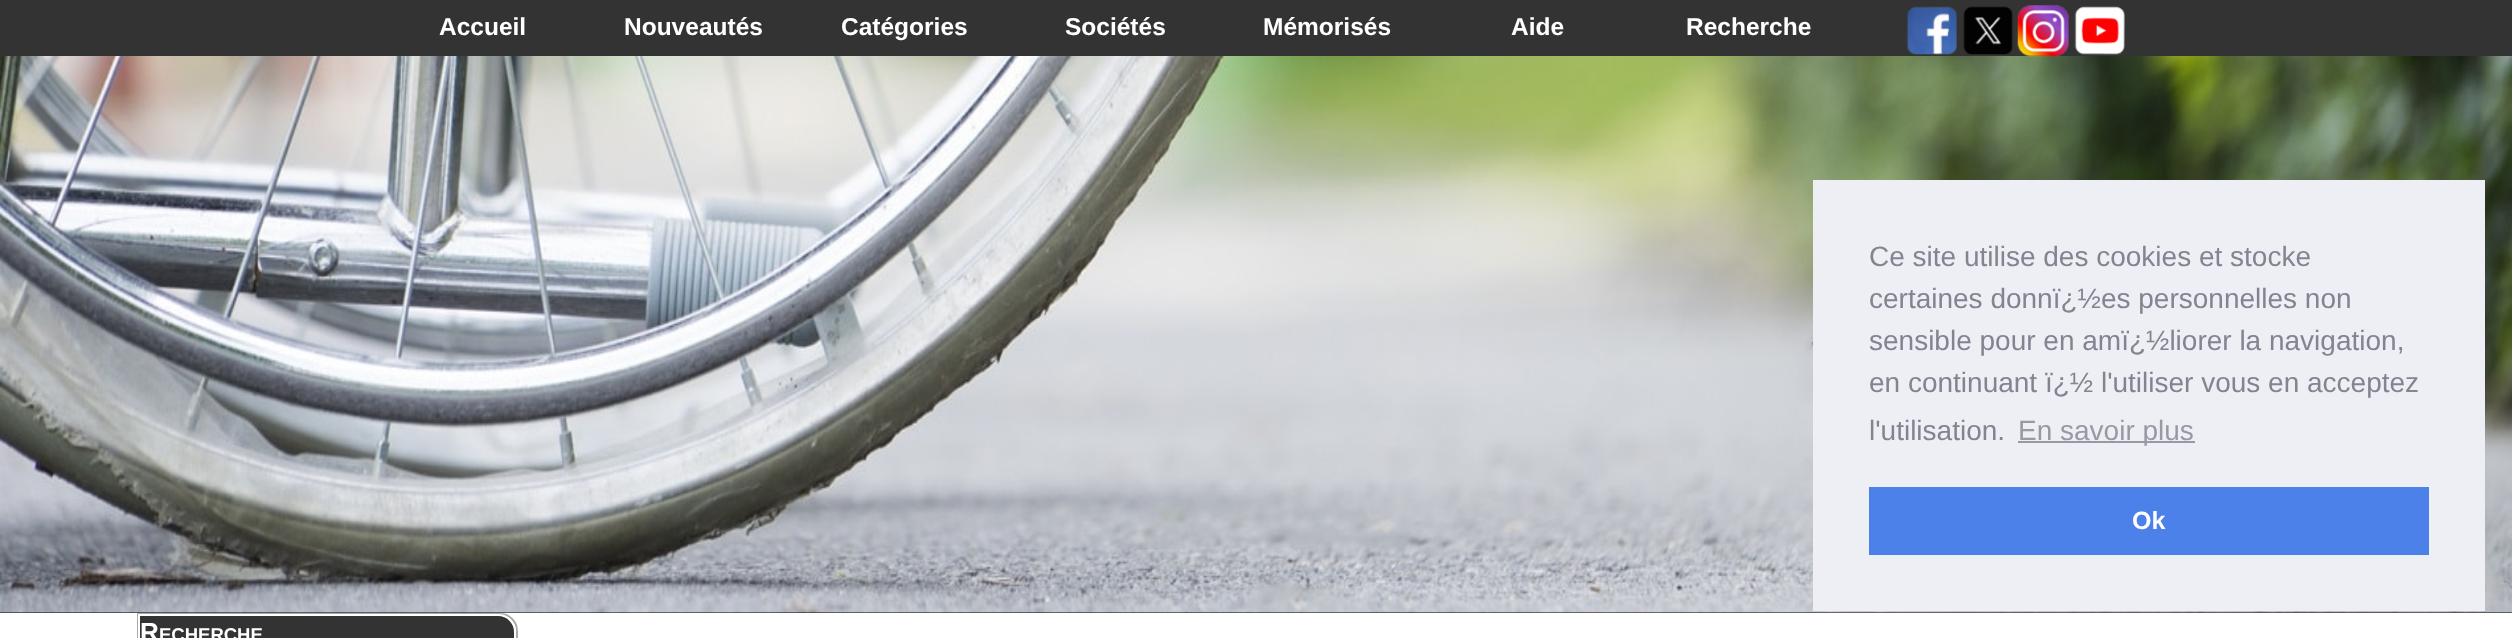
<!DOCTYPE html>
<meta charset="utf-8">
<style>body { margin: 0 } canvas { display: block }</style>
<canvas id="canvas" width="2512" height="638"></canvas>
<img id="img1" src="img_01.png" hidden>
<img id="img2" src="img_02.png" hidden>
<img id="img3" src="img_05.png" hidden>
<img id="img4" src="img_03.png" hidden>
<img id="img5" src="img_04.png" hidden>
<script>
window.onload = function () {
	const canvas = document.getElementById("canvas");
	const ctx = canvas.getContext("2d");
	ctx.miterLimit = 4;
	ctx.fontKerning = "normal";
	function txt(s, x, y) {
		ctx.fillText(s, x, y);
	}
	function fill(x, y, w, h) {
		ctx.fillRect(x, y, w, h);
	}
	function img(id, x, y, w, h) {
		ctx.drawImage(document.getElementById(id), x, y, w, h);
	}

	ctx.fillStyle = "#FFFFFF";
	fill(0, 0, 2512, 638);
	ctx.fillStyle = "#333333";
	fill(0, 0, 2512, 56);
	img("img1", 1906, 6, 51, 49);
	img("img2", 1963, 6, 50, 49);
	ctx.fillStyle = "#000000";
	fill(0, 612, 2512, 1);
	img("img3", 0, 56, 2512, 557);
	img("img4", 2017, 5, 52, 52);
	img("img5", 2074, 6, 51, 49);
	ctx.fillStyle = "#EDEFF5";
	fill(1813, 180, 672, 431);
	ctx.fillStyle = "#9899A5";
	fill(2018, 441, 177, 2);
	ctx.fillStyle = "#4B81E8";
	fill(1869, 487, 560, 68);
	ctx.beginPath();
	ctx.moveTo(138, 614);
	ctx.lineTo(500, 614);
	ctx.bezierCurveTo(509.5, 614, 517, 621.5, 517, 631);
	ctx.lineTo(517, 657);
	ctx.lineTo(138, 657);
	ctx.closePath();
	ctx.strokeStyle = "#AAAAAA";
	ctx.lineWidth = 2;
	ctx.stroke();
	ctx.fillStyle = "#333333";
	ctx.beginPath();
	ctx.moveTo(139, 615);
	ctx.lineTo(498, 615);
	ctx.bezierCurveTo(507.5, 615, 515, 622.5, 515, 632);
	ctx.lineTo(515, 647);
	ctx.lineTo(139, 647);
	ctx.closePath();
	ctx.fill();
	ctx.strokeStyle = "#FFFFFF";
	ctx.stroke();
	ctx.font = "bold 24.5px Liberation Sans";
	ctx.fillStyle = "#FFFFFF";
	txt("Accueil", 439, 35);
	txt("Nouveautés", 624, 35);
	txt("Catégories", 841, 35);
	txt("Sociétés", 1065, 35);
	txt("Mémorisés", 1263, 35);
	txt("Aide", 1511, 35);
	txt("Recherche", 1686, 35);
	ctx.font = "28px Liberation Sans";
	ctx.fillStyle = "#838391";
	txt("Ce site utilise des cookies et stocke", 1869, 266);
	txt("certaines donnï¿½es personnelles non", 1869, 308);
	txt("sensible pour en amï¿½liorer la navigation,", 1869, 350);
	txt("en continuant ï¿½ l'utiliser vous en acceptez", 1869, 392);
	txt("l'utilisation.", 1869, 440);
	ctx.fillStyle = "#9899A5";
	txt("En savoir plus", 2018, 440);
	ctx.font = "bold 25px Liberation Sans";
	ctx.fillStyle = "#FFFFFF";
	txt("Ok", 2132, 529);
	ctx.font = "bold 26px Liberation Sans";
	txt("R", 140, 641);
	ctx.font = "bold 18.5px Liberation Sans";
	txt("ECHERCHE", 159, 641);
};
</script>
